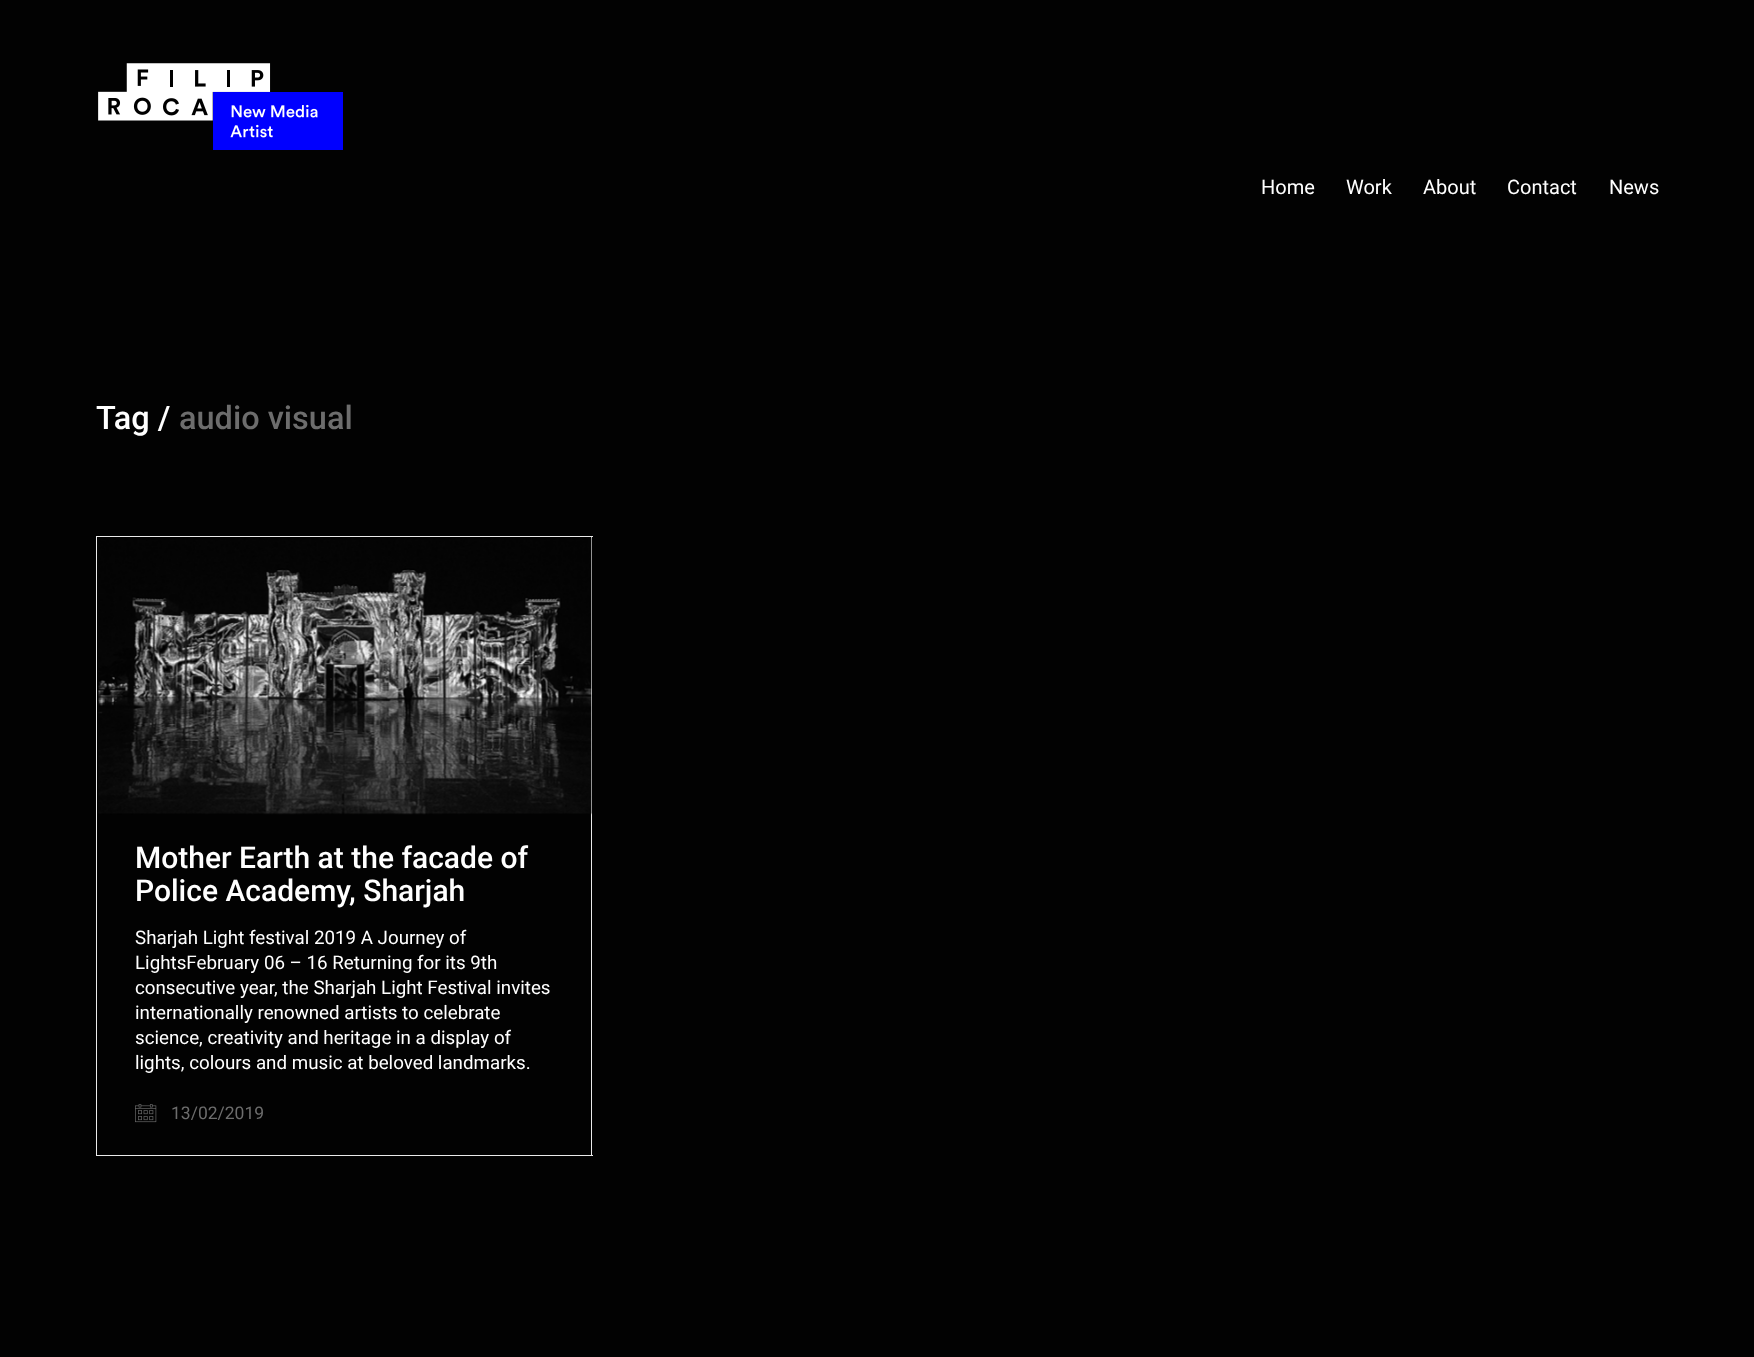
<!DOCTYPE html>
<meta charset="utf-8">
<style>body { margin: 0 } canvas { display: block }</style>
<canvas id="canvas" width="1754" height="1357"></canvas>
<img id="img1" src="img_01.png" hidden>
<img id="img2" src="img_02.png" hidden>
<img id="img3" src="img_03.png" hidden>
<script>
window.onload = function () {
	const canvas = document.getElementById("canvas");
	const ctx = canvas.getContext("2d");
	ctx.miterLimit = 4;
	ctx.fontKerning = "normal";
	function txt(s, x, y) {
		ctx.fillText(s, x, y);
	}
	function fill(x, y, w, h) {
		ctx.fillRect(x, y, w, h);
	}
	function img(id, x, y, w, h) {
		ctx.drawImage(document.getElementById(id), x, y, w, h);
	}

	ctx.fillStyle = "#020202";
	fill(0, 0, 1754, 1357);
	img("img1", 98, 63, 245, 87);
	ctx.fillStyle = "#EAEAEA";
	fill(96, 536, 497, 1);
	fill(591, 536, 1, 278);
	fill(96, 536, 1, 278);
	fill(591, 814, 1, 342);
	img("img2", 98, 537, 494, 278);
	fill(96, 1155, 497, 1);
	fill(96, 814, 1, 342);
	img("img3", 135, 1104, 22, 19);
	ctx.font = "20px Roboto";
	ctx.fillStyle = "#FFFFFF";
	txt("Home", 1261, 194);
	txt("Work", 1346, 194);
	txt("About", 1423, 194);
	txt("Contact", 1507, 194);
	txt("News", 1609, 194);
	ctx.font = "500 32.5px Roboto";
	txt("Tag /", 96, 429);
	ctx.fillStyle = "#6D6D6D";
	txt("audio visual", 179, 429);
	ctx.font = "500 30px Roboto";
	ctx.fillStyle = "#FFFFFF";
	txt("Mother Earth at the facade of", 135, 868);
	txt("Police Academy, Sharjah", 135, 901);
	ctx.font = "18.75px Roboto";
	txt("Sharjah Light festival 2019 A Journey of", 135, 944);
	txt("LightsFebruary 06 – 16 Returning for its 9th", 135, 969);
	txt("consecutive year, the Sharjah Light Festival invites", 135, 994);
	txt("internationally renowned artists to celebrate", 135, 1019);
	txt("science, creativity and heritage in a display of", 135, 1044);
	txt("lights, colours and music at beloved landmarks.", 135, 1069);
	ctx.font = "17.5px Roboto";
	ctx.fillStyle = "#6D6D6D";
	txt("13/02/2019", 171, 1119);
};
</script>
